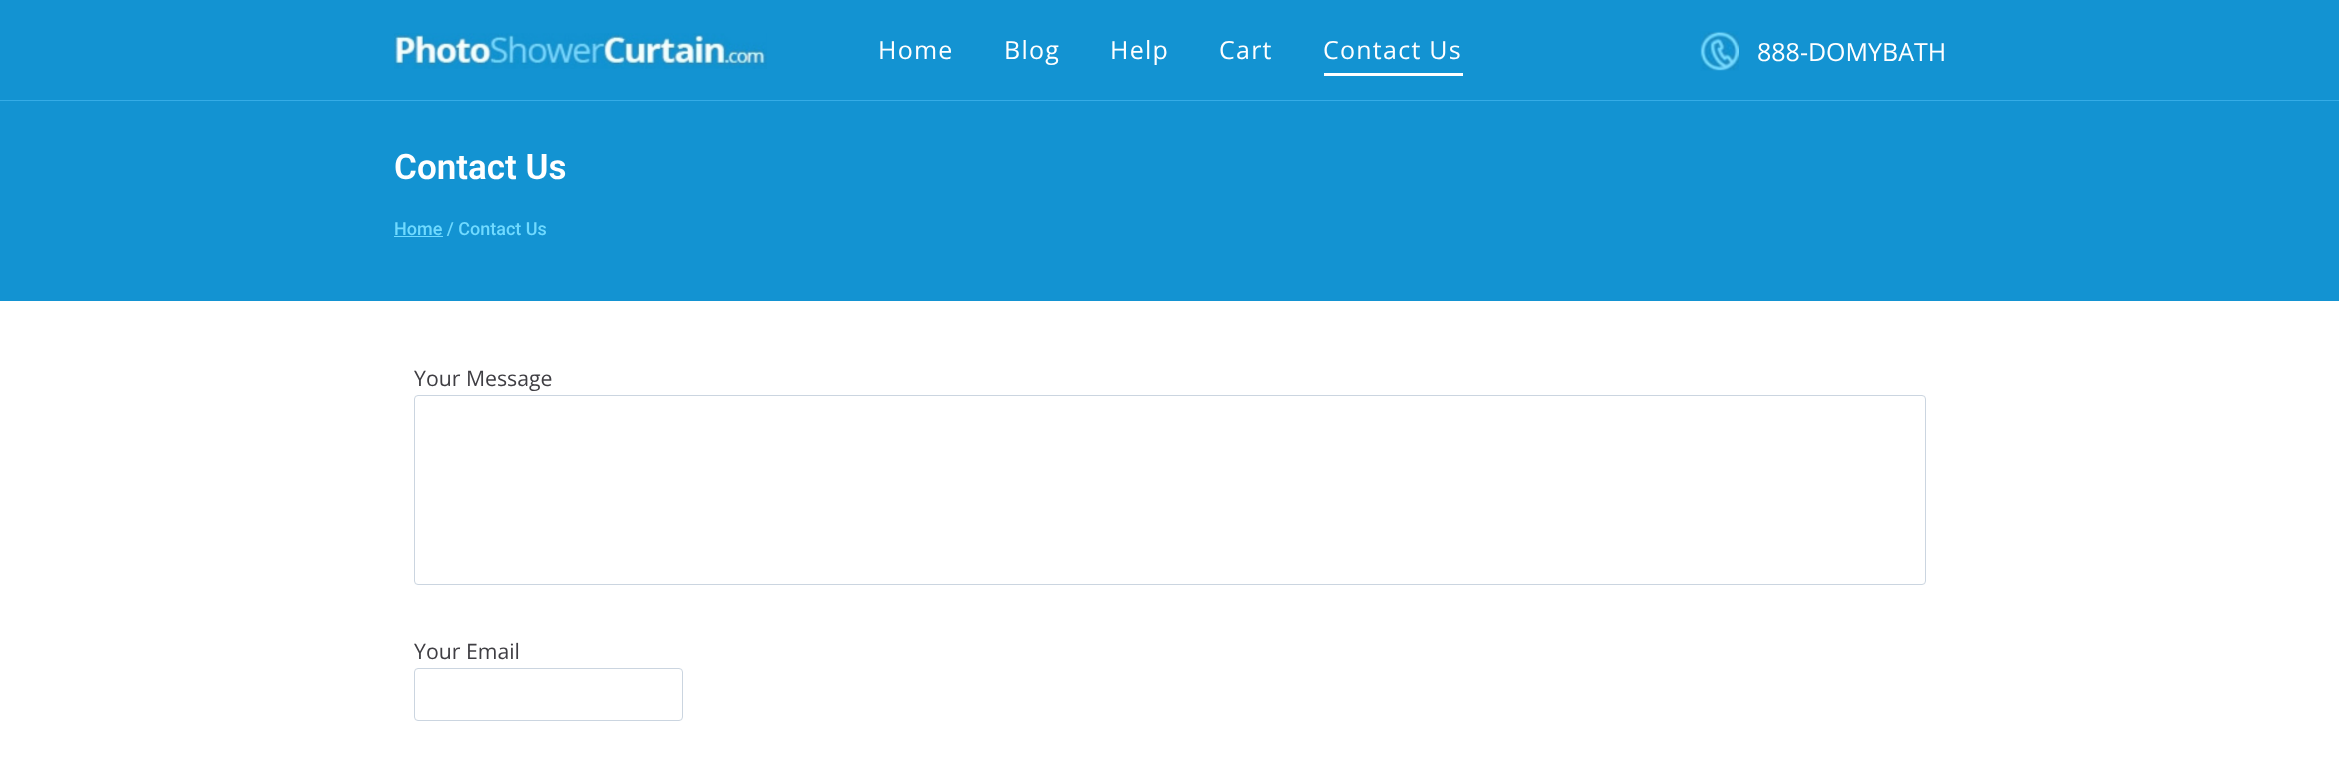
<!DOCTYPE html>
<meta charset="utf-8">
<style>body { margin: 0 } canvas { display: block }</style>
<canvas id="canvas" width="2339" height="774"></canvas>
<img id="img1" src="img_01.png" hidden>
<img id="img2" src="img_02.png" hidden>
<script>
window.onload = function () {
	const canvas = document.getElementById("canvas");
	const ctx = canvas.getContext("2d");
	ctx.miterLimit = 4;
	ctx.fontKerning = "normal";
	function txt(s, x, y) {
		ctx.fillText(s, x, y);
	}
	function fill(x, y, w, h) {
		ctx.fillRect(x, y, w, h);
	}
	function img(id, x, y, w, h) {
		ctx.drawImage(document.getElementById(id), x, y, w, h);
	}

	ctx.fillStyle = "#FFFFFF";
	fill(0, 0, 2339, 774);
	ctx.fillStyle = "#1393D2";
	fill(0, 0, 2339, 100);
	ctx.fillStyle = "#35ACE6";
	fill(0, 100, 2339, 1);
	img("img1", 394, 33, 373, 36);
	ctx.fillStyle = "#FFFFFF";
	fill(1324, 73, 139, 3);
	img("img2", 1700, 31, 39, 40);
	ctx.fillStyle = "#1393D2";
	fill(0, 101, 2339, 200);
	ctx.fillStyle = "#70DAFF";
	fill(394, 236, 49, 1);
	ctx.beginPath();
	ctx.roundRect(414.5, 395.5, 1511, 189, 3.5);
	ctx.strokeStyle = "#CBD5E0";
	ctx.stroke();
	ctx.beginPath();
	ctx.roundRect(414.5, 668.5, 268, 52, 3.5);
	ctx.stroke();
	ctx.letterSpacing = "1.25px";
	ctx.font = "25px Open Sans";
	ctx.fillStyle = "#FFFFFF";
	txt("Home", 878, 59);
	txt("Blog", 1004, 59);
	txt("Help", 1110, 59);
	txt("Cart", 1219, 59);
	txt("Contact Us", 1323, 59);
	ctx.letterSpacing = "0px";
	txt("888-DOMYBATH", 1757, 61);
	ctx.font = "600 35px Roboto";
	txt("Contact Us", 394, 179);
	ctx.font = "500 18px Roboto";
	ctx.fillStyle = "#70DAFF";
	txt("Home / Contact Us", 394, 235);
	ctx.font = "21.25px Open Sans";
	ctx.fillStyle = "#3F3E43";
	txt("Your Message", 414, 386);
	txt("Your Email", 414, 659);
};
</script>
